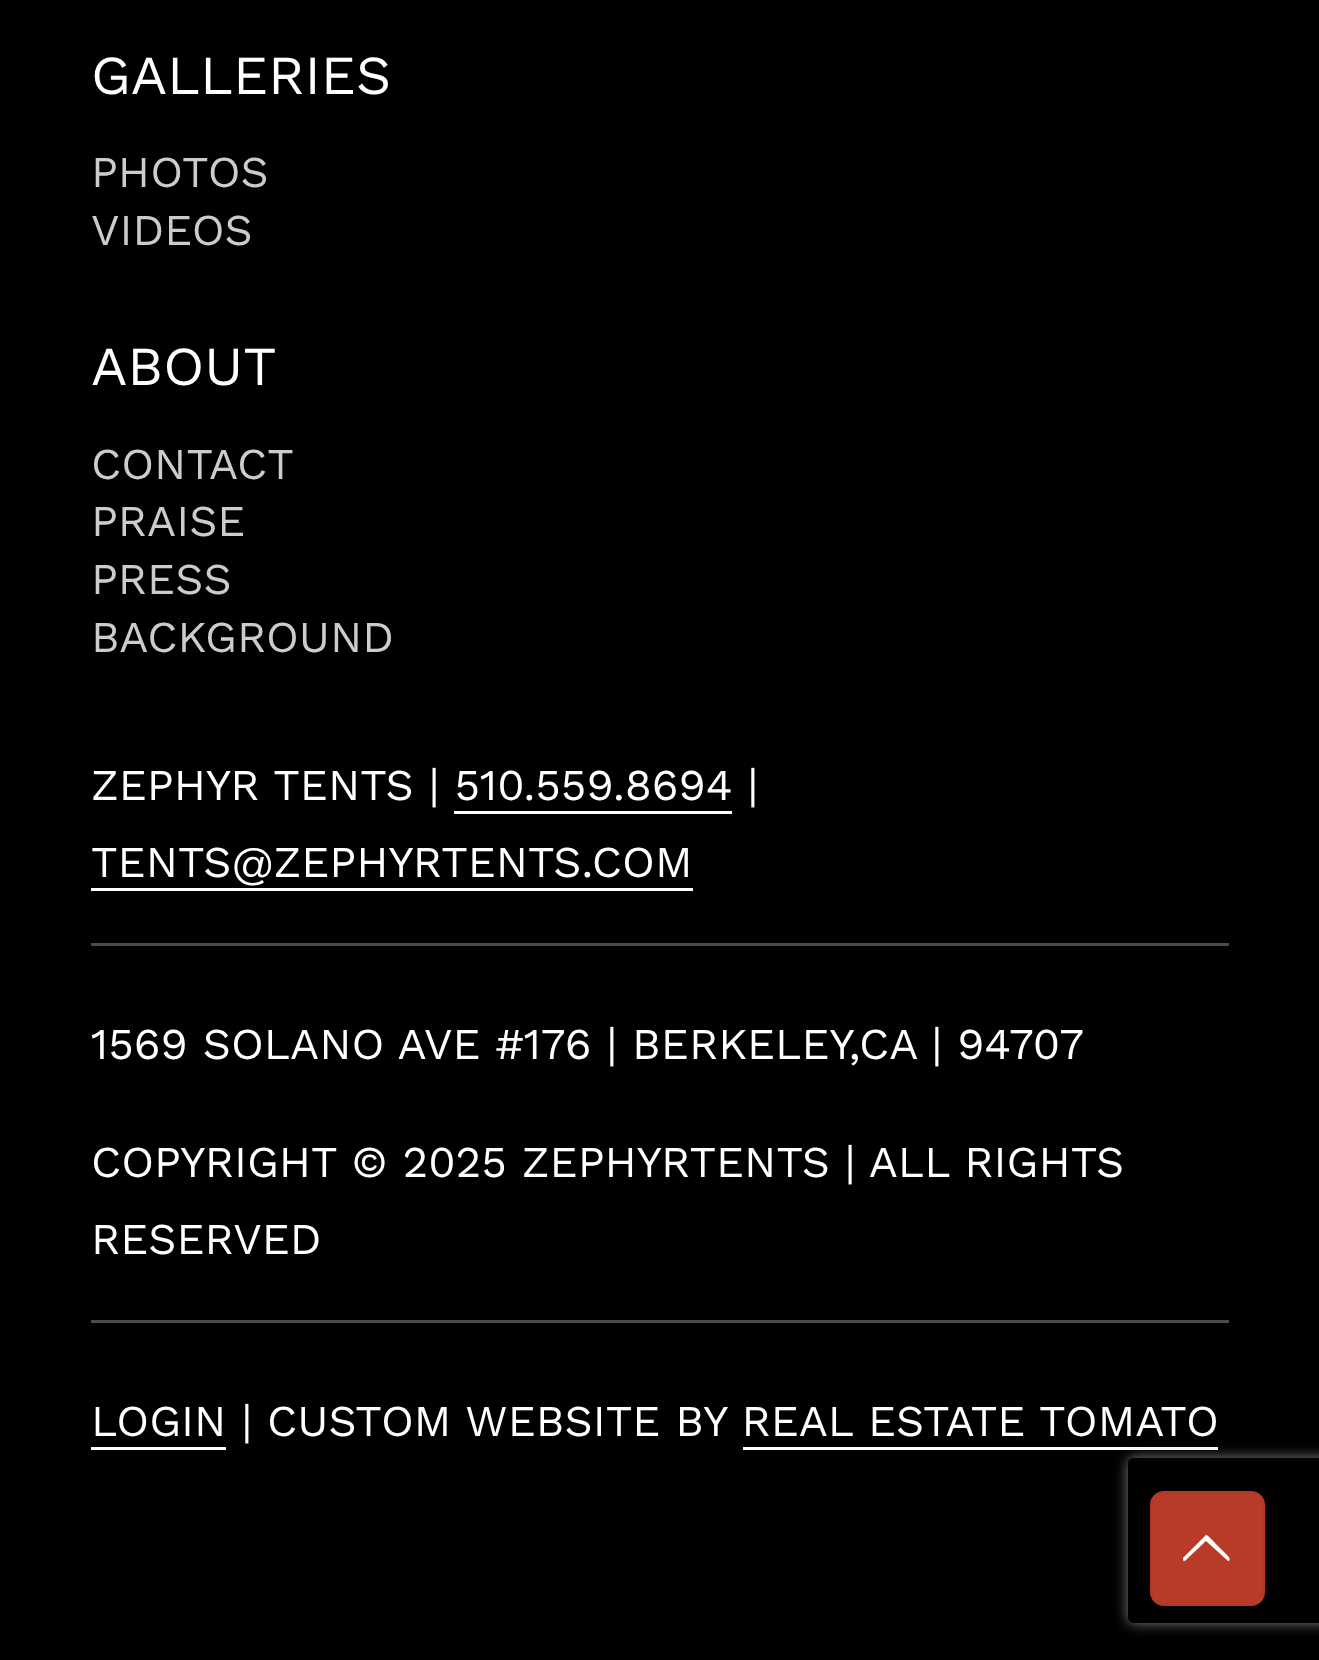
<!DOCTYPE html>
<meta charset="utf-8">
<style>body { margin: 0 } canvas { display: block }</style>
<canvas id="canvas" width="1319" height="1660"></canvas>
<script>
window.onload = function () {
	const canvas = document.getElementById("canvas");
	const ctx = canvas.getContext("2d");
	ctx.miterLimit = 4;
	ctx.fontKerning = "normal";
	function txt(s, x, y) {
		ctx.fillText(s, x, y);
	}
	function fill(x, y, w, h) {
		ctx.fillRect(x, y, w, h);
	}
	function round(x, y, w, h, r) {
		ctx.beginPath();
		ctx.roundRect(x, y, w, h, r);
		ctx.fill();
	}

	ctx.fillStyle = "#000000";
	fill(0, 0, 1319, 1660);
	ctx.fillStyle = "#FFFFFF";
	fill(454, 811, 278, 3);
	fill(91, 888, 602, 3);
	ctx.fillStyle = "#4B4B4B";
	fill(91, 943, 1138, 3);
	fill(91, 1320, 1138, 3);
	ctx.fillStyle = "#FFFFFF";
	fill(91, 1447, 135, 3);
	fill(743, 1447, 475, 3);
	ctx.save();
	ctx.beginPath();
	ctx.moveTo(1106, 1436);
	ctx.lineTo(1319, 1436);
	ctx.lineTo(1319, 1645);
	ctx.lineTo(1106, 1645);
	ctx.closePath();
	ctx.moveTo(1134, 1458);
	ctx.lineTo(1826, 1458);
	ctx.bezierCurveTo(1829.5, 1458, 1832, 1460.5, 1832, 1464);
	ctx.lineTo(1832, 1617);
	ctx.bezierCurveTo(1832, 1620.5, 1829.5, 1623, 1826, 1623);
	ctx.lineTo(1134, 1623);
	ctx.bezierCurveTo(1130.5, 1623, 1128, 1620.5, 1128, 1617);
	ctx.lineTo(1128, 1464);
	ctx.bezierCurveTo(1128, 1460.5, 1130.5, 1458, 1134, 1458);
	ctx.closePath();
	ctx.clip("evenodd");
	ctx.fillStyle = "#808080";
	ctx.filter = "blur(7px)";
	ctx.beginPath();
	ctx.roundRect(1128, 1458, 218, 165, 6);
	ctx.fill();
	ctx.filter = "none";
	ctx.restore();
	ctx.fillStyle = "#B83B29";
	round(1150, 1491, 115, 115, 14);
	ctx.strokeStyle = "rgba(0, 0, 0, 0.03)";
	ctx.lineWidth = 3;
	ctx.strokeRect(1151.5, 1492.5, 112, 112);
	ctx.fillStyle = "#FFFFFF";
	ctx.beginPath();
	ctx.moveTo(1227, 1560);
	ctx.lineTo(1206, 1541);
	ctx.lineTo(1189, 1557);
	ctx.bezierCurveTo(1188, 1558, 1184, 1563, 1183, 1560);
	ctx.lineTo(1183, 1558);
	ctx.lineTo(1206, 1535);
	ctx.bezierCurveTo(1208, 1535, 1214, 1542, 1215, 1543);
	ctx.lineTo(1226, 1554);
	ctx.bezierCurveTo(1226, 1554, 1233, 1560, 1228, 1561);
	ctx.closePath();
	ctx.fill();
	ctx.font = "55px Work Sans";
	txt("GALLERIES", 91, 94);
	ctx.font = "44px Work Sans";
	ctx.fillStyle = "#CCCCCC";
	txt("PHOTOS", 91, 187);
	txt("VIDEOS", 91, 245);
	ctx.font = "55px Work Sans";
	ctx.fillStyle = "#FFFFFF";
	txt("ABOUT", 91, 385);
	ctx.font = "44px Work Sans";
	ctx.fillStyle = "#CCCCCC";
	txt("CONTACT", 91, 479);
	txt("PRAISE", 91, 536);
	txt("PRESS", 91, 594);
	txt("BACKGROUND", 91, 652);
	ctx.fillStyle = "#FFFFFF";
	txt("ZEPHYR TENTS | 510.559.8694 |", 91, 800);
	txt("TENTS@ZEPHYRTENTS.COM", 91, 877);
	txt("1569 SOLANO AVE #176 | BERKELEY,CA | 94707", 91, 1059);
	txt("COPYRIGHT © 2025 ZEPHYRTENTS | ALL RIGHTS", 91, 1177);
	txt("RESERVED", 91, 1254);
	txt("LOGIN | CUSTOM WEBSITE BY REAL ESTATE TOMATO", 91, 1436);
};
</script>
